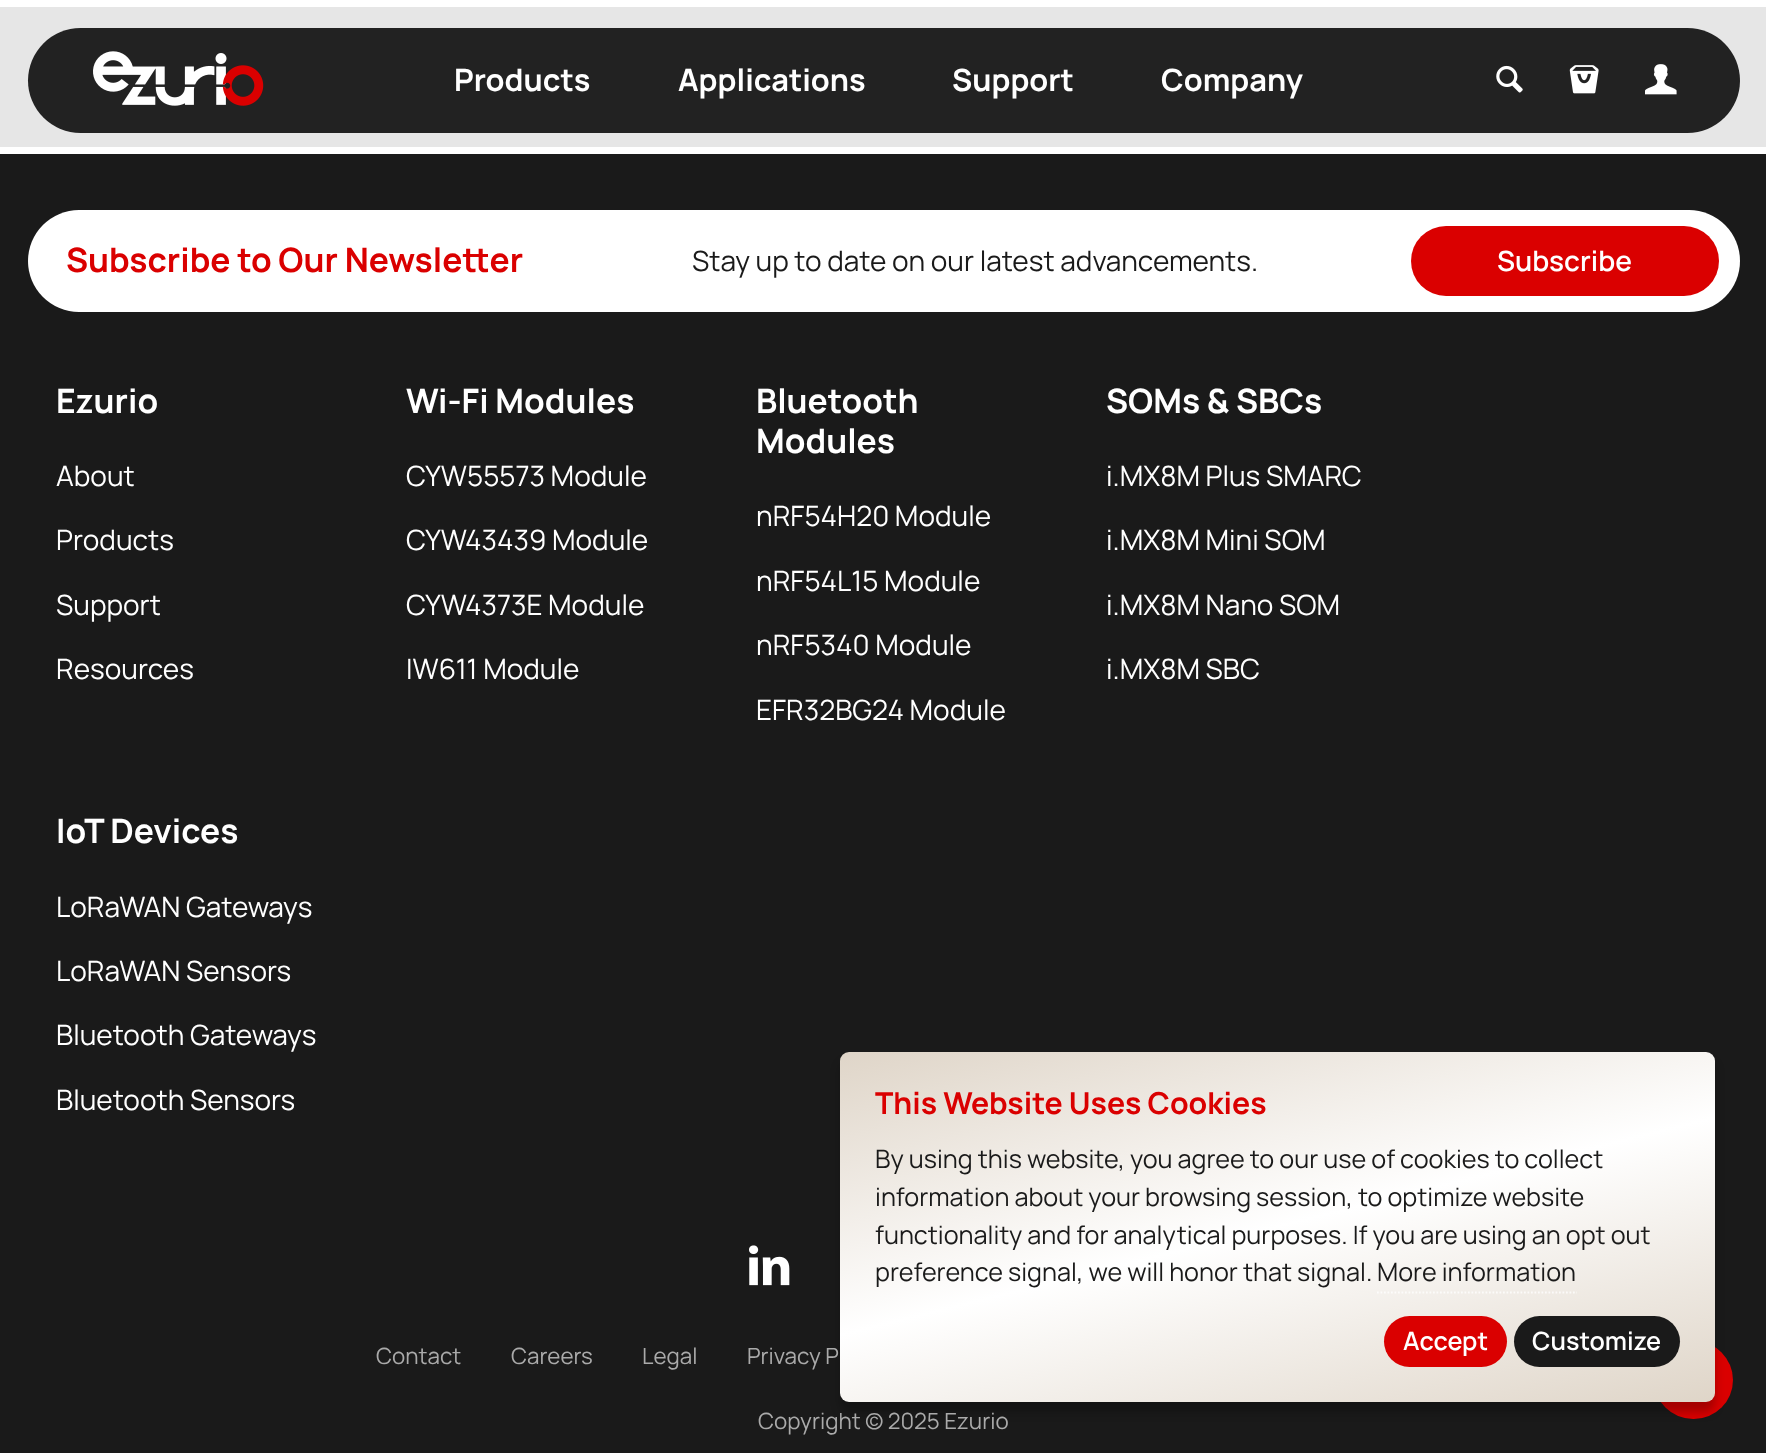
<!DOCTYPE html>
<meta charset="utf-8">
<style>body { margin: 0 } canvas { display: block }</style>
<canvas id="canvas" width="1766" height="1453"></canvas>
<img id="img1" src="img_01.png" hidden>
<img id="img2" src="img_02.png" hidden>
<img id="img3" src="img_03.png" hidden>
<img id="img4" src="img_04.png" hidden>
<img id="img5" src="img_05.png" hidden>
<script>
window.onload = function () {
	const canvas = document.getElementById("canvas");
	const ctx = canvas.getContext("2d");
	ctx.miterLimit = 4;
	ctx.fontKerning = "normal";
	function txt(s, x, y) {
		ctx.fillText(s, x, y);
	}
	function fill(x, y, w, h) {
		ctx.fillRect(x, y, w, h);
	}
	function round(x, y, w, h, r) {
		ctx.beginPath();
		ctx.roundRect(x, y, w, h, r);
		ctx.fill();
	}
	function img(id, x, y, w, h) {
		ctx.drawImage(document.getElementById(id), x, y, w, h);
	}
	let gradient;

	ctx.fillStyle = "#FFFFFF";
	fill(0, 0, 1766, 1453);
	ctx.fillStyle = "#E6E6E6";
	fill(0, 7, 1766, 140);
	ctx.fillStyle = "#222222";
	round(28, 28, 1712, 105, 52.5);
	img("img1", 93, 51, 171, 55);
	img("img2", 1496, 65, 27, 28);
	img("img3", 1569, 65, 30, 29);
	img("img4", 1645, 64, 32, 31);
	ctx.fillStyle = "#1A1A1A";
	fill(0, 154, 1766, 1299);
	ctx.fillStyle = "#FFFFFF";
	round(28, 210, 1712, 102, 51);
	ctx.fillStyle = "#DA0000";
	round(1411, 226, 308, 70, 35);
	img("img5", 749, 1245, 41, 41);
	round(1654, 1341, 79, 78, 39);
	ctx.fillStyle = "rgba(0, 0, 0, 0.25)";
	ctx.filter = "blur(5px)";
	ctx.beginPath();
	ctx.roundRect(840, 1062, 875, 350, 9);
	ctx.fill();
	ctx.filter = "none";
	gradient = ctx.createLinearGradient(1344, 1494, 1211, 959);
	gradient.addColorStop(0, "#DFD5C8");
	gradient.addColorStop(0.5, "#FFFFFF");
	gradient.addColorStop(1, "#DFD5C8");
	ctx.fillStyle = gradient;
	round(840, 1052, 875, 350, 9);
	ctx.beginPath();
	ctx.moveTo(1377, 1292.5);
	ctx.lineTo(1577, 1292.5);
	ctx.strokeStyle = "rgba(255, 255, 255, 0.75)";
	ctx.lineWidth = 1.8;
	ctx.setLineDash([1.75, 1.75]);
	ctx.stroke();
	ctx.fillStyle = "#DA0000";
	round(1384, 1316, 123, 51, 25.5);
	ctx.fillStyle = "#1A1A1A";
	round(1514, 1316, 166, 51, 25.5);
	ctx.font = "bold 30.75px Manrope";
	ctx.fillStyle = "#FFFFFF";
	txt("Products", 454, 91);
	txt("Applications", 678, 91);
	txt("Support", 952, 91);
	txt("Company", 1161, 91);
	ctx.font = "bold 33.6px Manrope";
	ctx.fillStyle = "#DA0000";
	txt("Subscribe to Our Newsletter", 66, 272);
	ctx.font = "28px Manrope";
	ctx.fillStyle = "#1A1A1A";
	txt("Stay up to date on our latest advancements.", 692, 271);
	ctx.font = "600 28px Manrope";
	ctx.fillStyle = "#FFFFFF";
	txt("Subscribe", 1497, 271);
	ctx.font = "bold 33.6px Manrope";
	txt("Ezurio", 56, 413);
	ctx.font = "28px Manrope";
	txt("About", 56, 486);
	txt("Products", 56, 550);
	txt("Support", 56, 615);
	txt("Resources", 56, 679);
	ctx.font = "bold 33.6px Manrope";
	txt("Wi-Fi Modules", 406, 413);
	ctx.font = "28px Manrope";
	txt("CYW55573 Module", 406, 486);
	txt("CYW43439 Module", 406, 550);
	txt("CYW4373E Module", 406, 615);
	txt("IW611 Module", 406, 679);
	ctx.font = "bold 33.6px Manrope";
	txt("Bluetooth", 756, 413);
	txt("Modules", 756, 453);
	ctx.font = "28px Manrope";
	txt("nRF54H20 Module", 756, 526);
	txt("nRF54L15 Module", 756, 591);
	txt("nRF5340 Module", 756, 655);
	txt("EFR32BG24 Module", 756, 720);
	ctx.font = "bold 33.6px Manrope";
	txt("SOMs & SBCs", 1106, 413);
	ctx.font = "28px Manrope";
	txt("i.MX8M Plus SMARC", 1106, 486);
	txt("i.MX8M Mini SOM", 1106, 550);
	txt("i.MX8M Nano SOM", 1106, 615);
	txt("i.MX8M SBC", 1106, 679);
	ctx.font = "bold 33.6px Manrope";
	txt("IoT Devices", 56, 843);
	ctx.font = "28px Manrope";
	txt("LoRaWAN Gateways", 56, 917);
	txt("LoRaWAN Sensors", 56, 981);
	txt("Bluetooth Gateways", 56, 1045);
	txt("Bluetooth Sensors", 56, 1110);
	ctx.font = "22.4px Manrope";
	ctx.fillStyle = "#AAAAAA";
	txt("Contact", 376, 1364);
	txt("Careers", 511, 1364);
	txt("Legal", 642, 1364);
	txt("Privacy P", 747, 1364);
	txt("Copyright © 2025 Ezurio", 758, 1429);
	ctx.font = "bold 30.25px Manrope";
	ctx.fillStyle = "#DA0000";
	txt("This Website Uses Cookies", 875, 1114);
	ctx.font = "25.2px Manrope";
	ctx.fillStyle = "#1A1A1A";
	txt("By using this website, you agree to our use of cookies to collect", 875, 1168);
	txt("information about your browsing session, to optimize website", 875, 1206);
	txt("functionality and for analytical purposes. If you are using an opt out", 875, 1244);
	txt("preference signal, we will honor that signal.", 875, 1281);
	txt("More information", 1377, 1281);
	ctx.font = "600 25.2px Manrope";
	ctx.fillStyle = "#FFFFFF";
	txt("Accept", 1403, 1350);
	txt("Customize", 1532, 1350);
};
</script>
